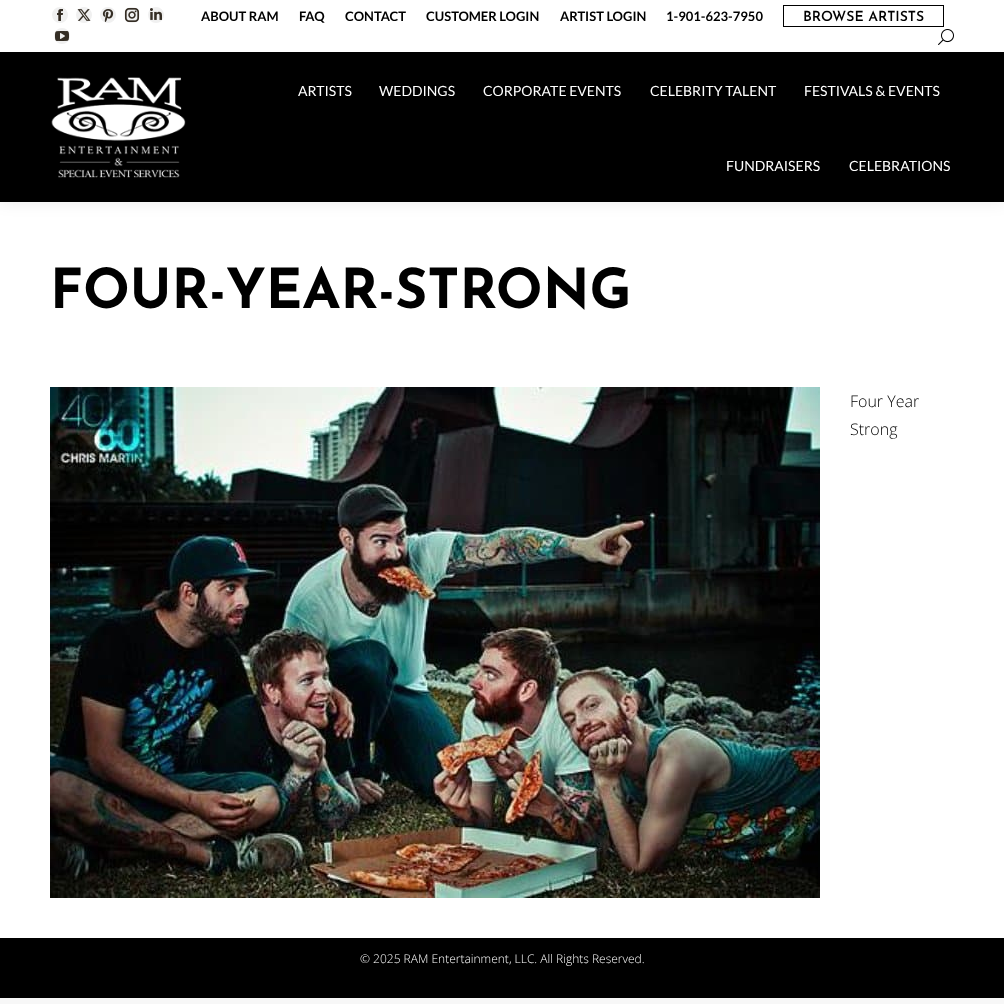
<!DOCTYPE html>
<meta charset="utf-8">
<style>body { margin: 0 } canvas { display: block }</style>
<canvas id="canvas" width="1004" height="1004"></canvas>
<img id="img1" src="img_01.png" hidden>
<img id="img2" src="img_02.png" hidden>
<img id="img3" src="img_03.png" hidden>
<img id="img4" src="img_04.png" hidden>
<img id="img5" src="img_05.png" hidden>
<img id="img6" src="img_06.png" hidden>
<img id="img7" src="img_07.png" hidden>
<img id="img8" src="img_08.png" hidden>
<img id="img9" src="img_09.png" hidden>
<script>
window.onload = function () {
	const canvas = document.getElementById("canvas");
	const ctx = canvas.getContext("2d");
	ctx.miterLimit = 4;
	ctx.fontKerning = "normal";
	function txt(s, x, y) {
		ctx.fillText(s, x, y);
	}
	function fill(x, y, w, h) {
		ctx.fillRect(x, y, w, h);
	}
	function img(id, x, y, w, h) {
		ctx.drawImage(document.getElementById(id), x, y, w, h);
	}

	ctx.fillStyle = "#F7F7F7";
	fill(0, 0, 1004, 1004);
	ctx.fillStyle = "#FFFFFF";
	fill(0, 202, 1004, 736);
	ctx.fillStyle = "rgba(0, 0, 0, 0.07)";
	ctx.filter = "blur(7.5px)";
	ctx.beginPath();
	ctx.rect(-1, -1, 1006, 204);
	ctx.fill();
	ctx.filter = "none";
	ctx.fillStyle = "#000000";
	fill(0, 52, 1004, 150);
	ctx.fillStyle = "#FFFFFF";
	fill(0, 0, 1004, 52);
	ctx.fillStyle = "#F0F0F0";
	ctx.beginPath();
	ctx.arc(60, 15, 9, 0, Math.PI * 2);
	ctx.fill();
	ctx.strokeStyle = "#FFFFFF";
	ctx.lineWidth = 2;
	ctx.stroke();
	img("img1", 57, 9, 6, 12);
	ctx.beginPath();
	ctx.arc(84, 15, 9, 0, Math.PI * 2);
	ctx.fill();
	ctx.stroke();
	img("img2", 77, 9, 14, 12);
	ctx.beginPath();
	ctx.arc(108, 15, 9, 0, Math.PI * 2);
	ctx.fill();
	ctx.stroke();
	img("img3", 102, 9, 12, 13);
	ctx.beginPath();
	ctx.arc(132, 15, 9, 0, Math.PI * 2);
	ctx.fill();
	ctx.stroke();
	img("img4", 125, 8, 14, 14);
	ctx.beginPath();
	ctx.arc(156, 15, 9, 0, Math.PI * 2);
	ctx.fill();
	ctx.stroke();
	img("img5", 150, 8, 12, 12);
	ctx.beginPath();
	ctx.arc(62, 36, 9, 0, Math.PI * 2);
	ctx.fill();
	ctx.stroke();
	img("img6", 55, 31, 14, 10);
	ctx.strokeStyle = "#000000";
	ctx.lineWidth = 1;
	ctx.strokeRect(783.5, 5.5, 160, 21);
	img("img7", 938, 29, 16, 16);
	img("img8", 51, 77, 135, 101);
	img("img9", 50, 387, 770, 511);
	ctx.fillStyle = "#000000";
	fill(0, 938, 1004, 60);
	ctx.font = "bold 13px Lato";
	txt("ABOUT RAM", 201, 21);
	txt("FAQ", 299, 21);
	txt("CONTACT", 345, 21);
	txt("CUSTOMER LOGIN", 426, 21);
	txt("ARTIST LOGIN", 560, 21);
	txt("1-901-623-7950", 666, 21);
	ctx.font = "600 14px Josefin Sans";
	txt("BROWSE ARTISTS", 803, 21);
	ctx.font = "14px Lato";
	ctx.fillStyle = "#FFFFFF";
	txt("ARTISTS", 298, 96);
	txt("WEDDINGS", 379, 96);
	txt("CORPORATE EVENTS", 483, 96);
	txt("CELEBRITY TALENT", 650, 96);
	txt("FESTIVALS & EVENTS", 804, 96);
	txt("FUNDRAISERS", 726, 171);
	txt("CELEBRATIONS", 849, 171);
	ctx.font = "bold 55px Josefin Sans";
	ctx.fillStyle = "#000000";
	txt("FOUR-YEAR-STRONG", 50, 308);
	ctx.font = "300 16px Open Sans";
	txt("Four Year", 850, 407);
	txt("Strong", 850, 435);
	ctx.font = "300 12px Open Sans";
	ctx.fillStyle = "#FFFFFF";
	txt("© 2025 RAM Entertainment, LLC. All Rights Reserved.", 360, 963);
};
</script>
